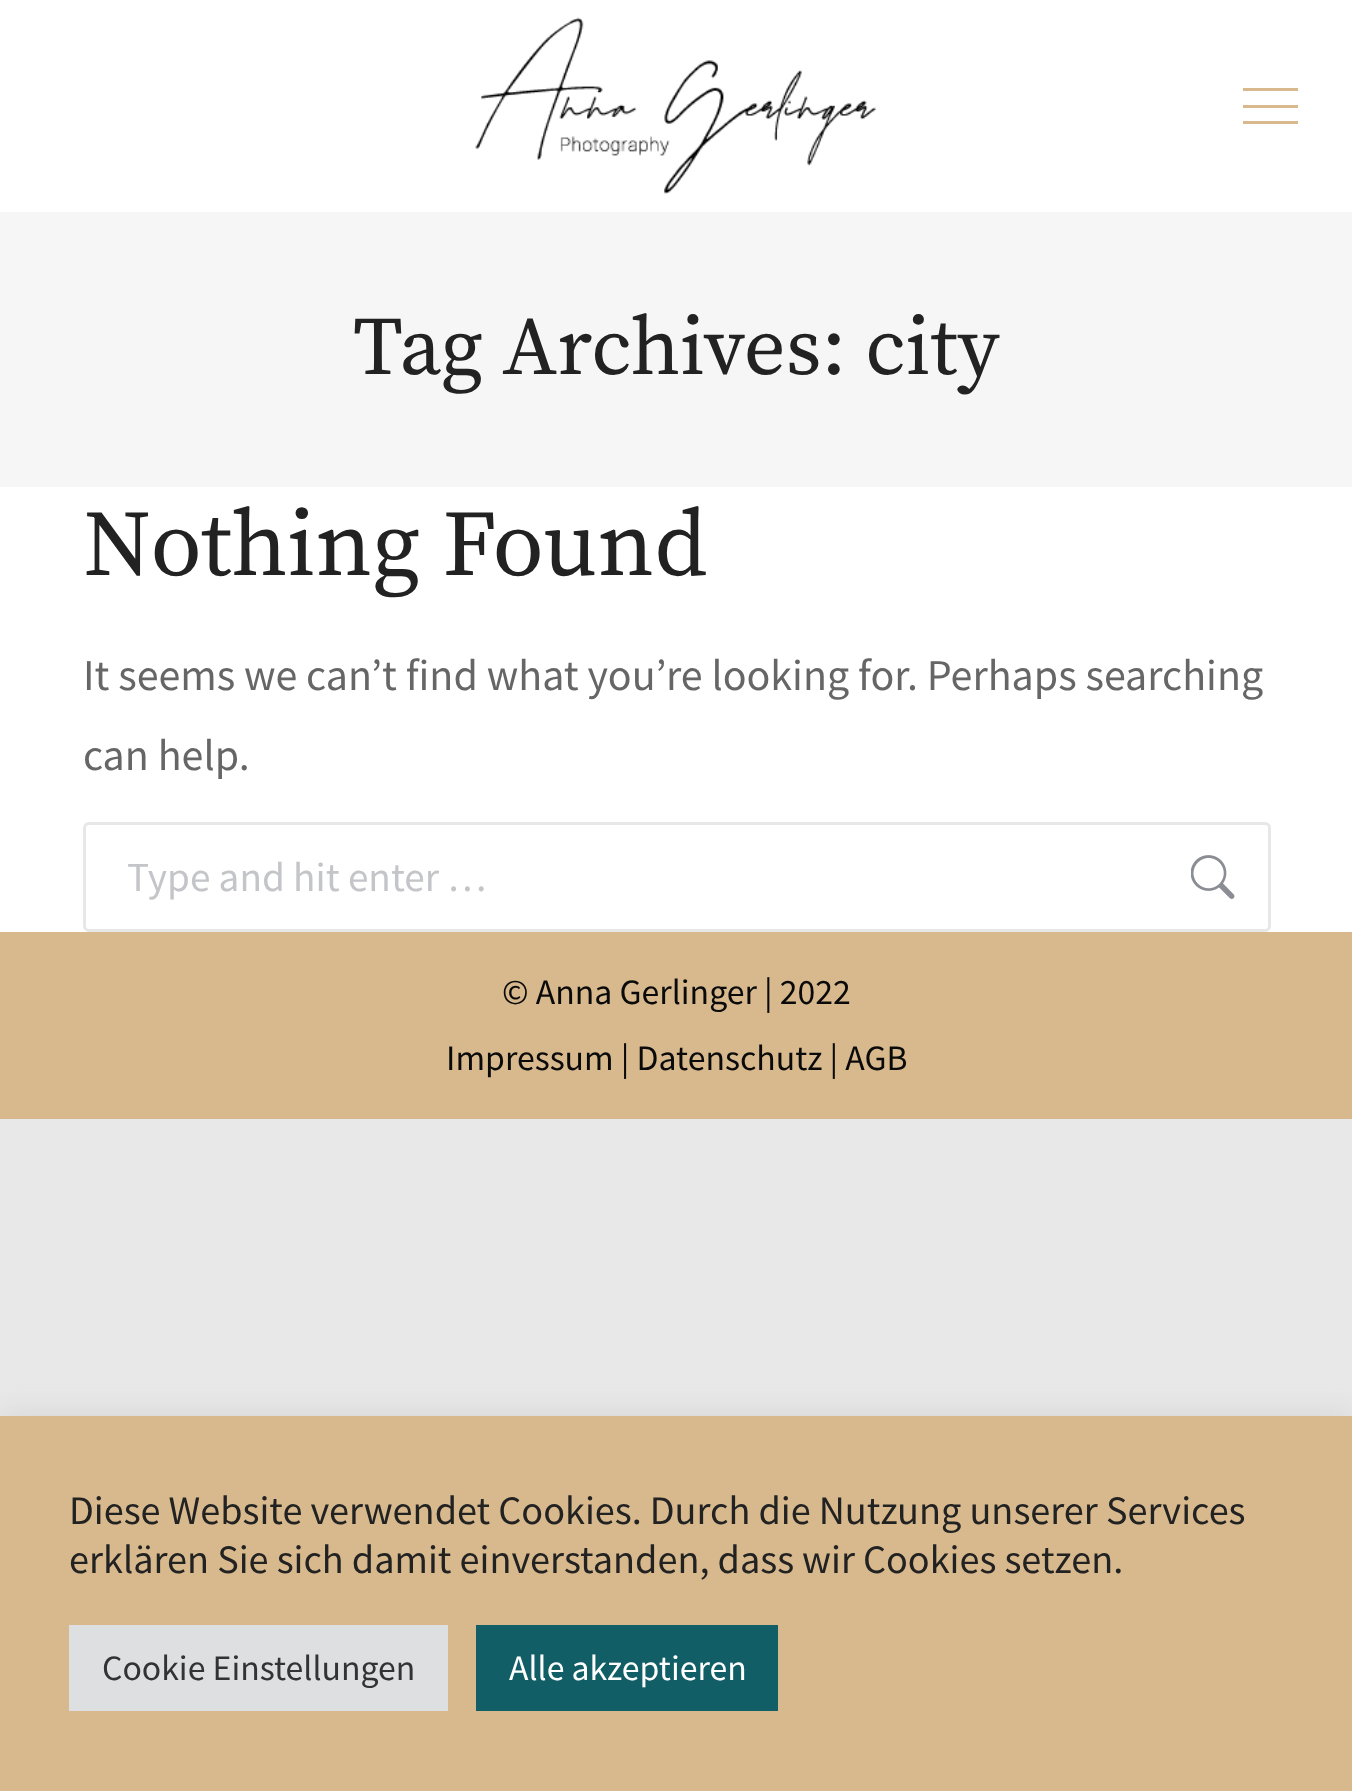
<!DOCTYPE html>
<meta charset="utf-8">
<style>body { margin: 0 } canvas { display: block }</style>
<canvas id="canvas" width="1352" height="1791"></canvas>
<img id="img1" src="img_01.png" hidden>
<img id="img2" src="img_02.png" hidden>
<script>
window.onload = function () {
	const canvas = document.getElementById("canvas");
	const ctx = canvas.getContext("2d");
	ctx.miterLimit = 4;
	ctx.fontKerning = "normal";
	function txt(s, x, y) {
		ctx.fillText(s, x, y);
	}
	function fill(x, y, w, h) {
		ctx.fillRect(x, y, w, h);
	}
	function img(id, x, y, w, h) {
		ctx.drawImage(document.getElementById(id), x, y, w, h);
	}

	ctx.fillStyle = "#E8E8E8";
	fill(0, 0, 1352, 1791);
	ctx.fillStyle = "#FFFFFF";
	fill(0, 0, 1352, 932);
	img("img1", 475, 17, 402, 177);
	ctx.fillStyle = "#D7B98D";
	fill(1243, 88, 55, 3);
	fill(1243, 105, 55, 3);
	fill(1243, 121, 55, 3);
	ctx.fillStyle = "#F6F6F6";
	fill(0, 212, 1352, 275);
	ctx.beginPath();
	ctx.roundRect(84.5, 823.5, 1185, 107, 4.5);
	ctx.strokeStyle = "#E7E7E7";
	ctx.lineWidth = 3;
	ctx.stroke();
	img("img2", 1191, 855, 44, 44);
	ctx.fillStyle = "#D7B98D";
	fill(0, 932, 1352, 187);
	ctx.fillStyle = "rgba(172, 171, 171, 0.3)";
	ctx.filter = "blur(14px)";
	ctx.beginPath();
	ctx.rect(0, 1414, 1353, 376);
	ctx.fill();
	ctx.filter = "none";
	ctx.fillStyle = "#D7B98D";
	fill(0, 1416, 1352, 375);
	ctx.fillStyle = "#DEDFE0";
	fill(69, 1625, 379, 86);
	ctx.fillStyle = "#115E67";
	fill(476, 1625, 302, 86);
	ctx.font = "82.5px Source Serif Pro";
	ctx.fillStyle = "#222222";
	txt("Tag Archives: city", 353, 374);
	ctx.font = "93.5px Source Serif Pro";
	txt("Nothing Found", 83, 575);
	ctx.font = "44px Source Sans Pro";
	ctx.fillStyle = "#666666";
	txt("It seems we can’t find what you’re looking for. Perhaps searching", 83, 690);
	txt("can help.", 83, 770);
	ctx.font = "41.25px Source Sans Pro";
	ctx.fillStyle = "#C4C5C9";
	txt("Type and hit enter …", 127, 891);
	ctx.font = "35.75px Source Sans Pro";
	ctx.fillStyle = "#0A0A0A";
	txt("© Anna Gerlinger | 2022", 502, 1004);
	txt("Impressum | Datenschutz | AGB", 446, 1070);
	ctx.font = "40.3px Source Sans Pro";
	ctx.fillStyle = "#222222";
	txt("Diese Website verwendet Cookies. Durch die Nutzung unserer Services", 69, 1524);
	txt("erklären Sie sich damit einverstanden, dass wir Cookies setzen.", 69, 1573);
	ctx.font = "35.75px Source Sans Pro";
	ctx.fillStyle = "#333333";
	txt("Cookie Einstellungen", 102, 1680);
	ctx.fillStyle = "#FFFFFF";
	txt("Alle akzeptieren", 509, 1680);
};
</script>
